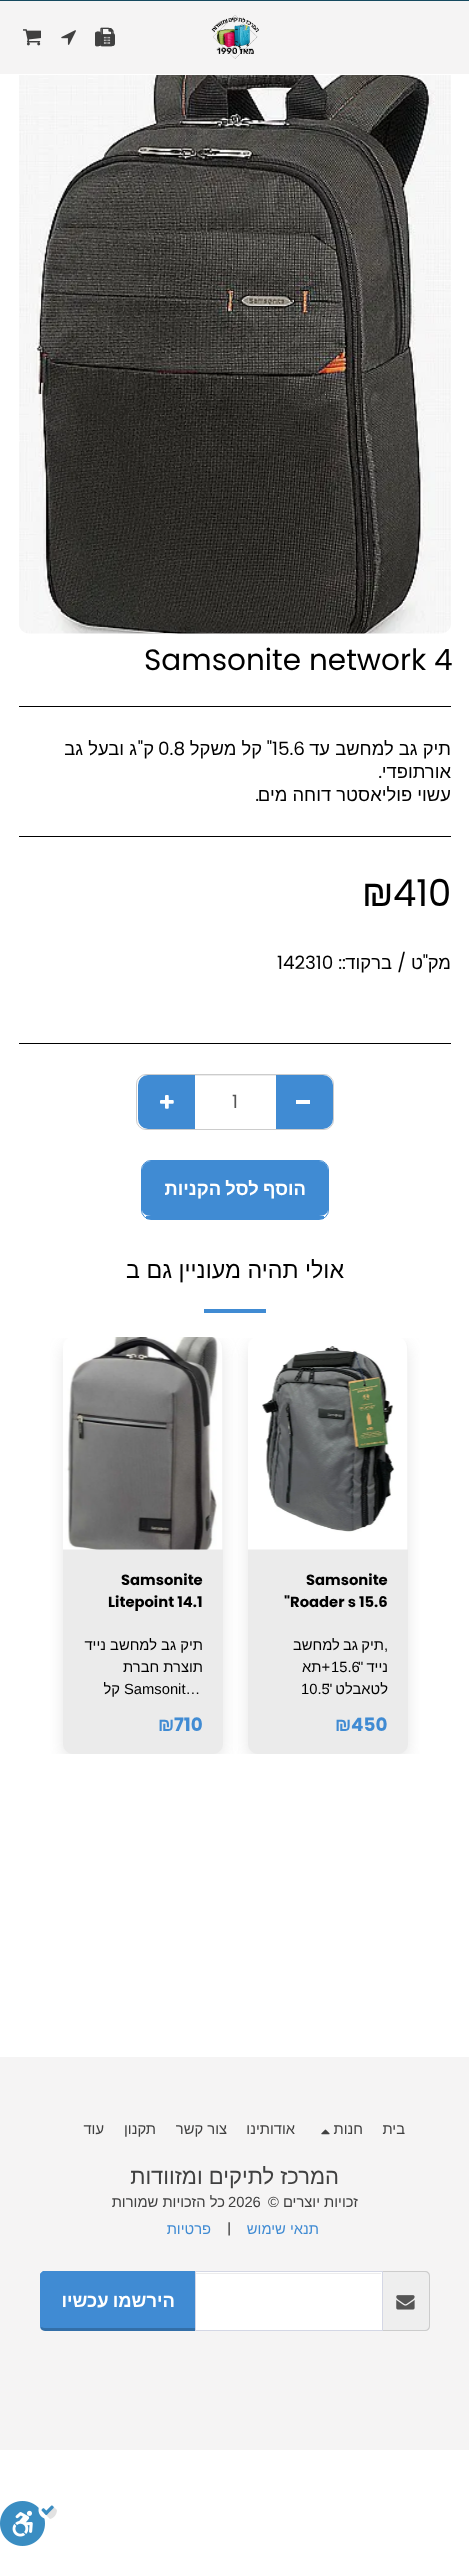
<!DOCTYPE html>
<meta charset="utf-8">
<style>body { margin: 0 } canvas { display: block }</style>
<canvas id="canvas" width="469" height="2549"></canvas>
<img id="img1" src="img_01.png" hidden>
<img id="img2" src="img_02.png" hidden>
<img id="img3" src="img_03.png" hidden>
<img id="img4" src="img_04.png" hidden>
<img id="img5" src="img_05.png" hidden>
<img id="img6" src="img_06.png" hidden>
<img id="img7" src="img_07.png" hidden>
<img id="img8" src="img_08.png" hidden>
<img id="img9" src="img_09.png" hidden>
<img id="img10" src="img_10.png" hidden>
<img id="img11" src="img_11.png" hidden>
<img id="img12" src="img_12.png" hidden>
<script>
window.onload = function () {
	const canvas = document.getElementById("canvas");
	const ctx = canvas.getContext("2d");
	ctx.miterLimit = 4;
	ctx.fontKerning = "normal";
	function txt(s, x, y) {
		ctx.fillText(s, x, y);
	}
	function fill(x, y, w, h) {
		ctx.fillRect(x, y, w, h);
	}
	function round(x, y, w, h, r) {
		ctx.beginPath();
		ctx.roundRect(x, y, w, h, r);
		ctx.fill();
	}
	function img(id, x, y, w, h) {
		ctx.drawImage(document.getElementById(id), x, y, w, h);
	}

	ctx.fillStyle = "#FFFFFF";
	fill(0, 0, 469, 2549);
	ctx.fillStyle = "#15495F";
	fill(0, 0, 469, 1);
	img("img1", 0, 2501, 57, 45);
	ctx.fillStyle = "#F5F4F4";
	fill(0, 1, 469, 73);
	img("img2", 211, 15, 48, 44);
	img("img3", 97, 28, 18, 18);
	img("img4", 95, 27, 18, 20);
	img("img5", 61, 30, 15, 15);
	img("img6", 23, 29, 18, 17);
	img("img7", 19, 75, 432, 559);
	ctx.fillStyle = "#000000";
	fill(19, 706, 432, 1);
	fill(19, 836, 432, 1);
	fill(19, 1043, 432, 1);
	ctx.beginPath();
	ctx.roundRect(136.5, 1074.5, 197, 55, 9.5);
	ctx.strokeStyle = "#CCCCCC";
	ctx.stroke();
	ctx.fillStyle = "#408BD3";
	ctx.beginPath();
	ctx.roundRect(275, 1075, 58, 54, [0, 10, 10, 0]);
	ctx.fill();
	ctx.fillStyle = "#FFFFFF";
	fill(296, 1100, 14, 4);
	ctx.fillStyle = "#408BD3";
	ctx.beginPath();
	ctx.roundRect(138, 1075, 58, 54, [10, 0, 0, 10]);
	ctx.fill();
	ctx.fillStyle = "#FFFFFF";
	fill(195, 1076, 81, 53);
	ctx.fillStyle = "#ECECEC";
	fill(195, 1075, 81, 1);
	img("img8", 160, 1095, 14, 14);
	ctx.fillStyle = "#408BD3";
	ctx.beginPath();
	ctx.moveTo(151, 1161);
	ctx.lineTo(319, 1161);
	ctx.bezierCurveTo(324, 1161, 328, 1165, 328, 1170);
	ctx.lineTo(328, 1210);
	ctx.bezierCurveTo(328, 1213, 324, 1216, 319, 1216);
	ctx.lineTo(151, 1216);
	ctx.bezierCurveTo(146, 1216, 142, 1213, 142, 1210);
	ctx.lineTo(142, 1170);
	ctx.bezierCurveTo(142, 1165, 146, 1161, 151, 1161);
	ctx.closePath();
	ctx.fill();
	ctx.beginPath();
	ctx.roundRect(141.5, 1160.5, 187, 59, 9.5);
	ctx.strokeStyle = "#408BD3";
	ctx.stroke();
	fill(146, 1216, 178, 3);
	fill(204, 1309, 62, 4);
	ctx.save();
	ctx.beginPath();
	ctx.rect(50, 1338, 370, 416);
	ctx.clip();
	ctx.fillStyle = "rgba(129, 129, 129, 0.2)";
	ctx.filter = "blur(8px)";
	ctx.beginPath();
	ctx.roundRect(248, 1344, 160, 416, 10);
	ctx.fill();
	ctx.filter = "none";
	ctx.restore();
	ctx.fillStyle = "#EBEBEB";
	round(248, 1338, 160, 416, 10);
	img("img9", 248, 1338, 160, 212);
	ctx.save();
	ctx.beginPath();
	ctx.rect(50, 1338, 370, 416);
	ctx.clip();
	ctx.fillStyle = "rgba(129, 129, 129, 0.2)";
	ctx.filter = "blur(8px)";
	ctx.beginPath();
	ctx.roundRect(63, 1344, 160, 416, 10);
	ctx.fill();
	ctx.filter = "none";
	ctx.restore();
	round(63, 1338, 160, 416, 10);
	img("img10", 63, 1337, 160, 213);
	ctx.fillStyle = "#F5F4F4";
	fill(0, 2057, 469, 393);
	img("img11", 321, 2129, 9, 6);
	ctx.fillStyle = "#EEEEEE";
	ctx.beginPath();
	ctx.roundRect(383, 2271, 47, 60, [0, 5, 5, 0]);
	ctx.fill();
	ctx.fillStyle = "#CCCCCC";
	ctx.beginPath();
	ctx.moveTo(382, 2271);
	ctx.lineTo(425, 2271);
	ctx.bezierCurveTo(428, 2271, 430, 2273, 430, 2276);
	ctx.lineTo(430, 2326);
	ctx.bezierCurveTo(430, 2329, 428, 2331, 425, 2331);
	ctx.lineTo(382, 2331);
	ctx.closePath();
	ctx.moveTo(382, 2272);
	ctx.lineTo(425, 2272);
	ctx.bezierCurveTo(427, 2272, 429, 2274, 429, 2276);
	ctx.lineTo(429, 2326);
	ctx.bezierCurveTo(429, 2328, 427, 2330, 425, 2330);
	ctx.lineTo(382, 2330);
	ctx.closePath();
	ctx.fill("evenodd");
	img("img12", 396, 2295, 19, 15);
	ctx.fillStyle = "#FFFFFF";
	fill(196, 2272, 186, 58);
	ctx.fillStyle = "#ECECEC";
	fill(196, 2273, 185, 1);
	ctx.fillStyle = "#408BD3";
	ctx.beginPath();
	ctx.roundRect(40, 2271, 156, 60, [5, 0, 0, 5]);
	ctx.fill();
	ctx.beginPath();
	ctx.moveTo(45, 2272);
	ctx.lineTo(42, 2273);
	ctx.lineTo(41, 2273);
	ctx.lineTo(43, 2271);
	ctx.lineTo(196, 2271);
	ctx.lineTo(195, 2272);
	ctx.closePath();
	ctx.fill();
	ctx.fillStyle = "rgba(0, 0, 0, 0.2)";
	ctx.beginPath();
	ctx.moveTo(196, 2330);
	ctx.lineTo(196, 2331);
	ctx.lineTo(45, 2331);
	ctx.bezierCurveTo(43, 2331, 42, 2330, 41, 2329);
	ctx.lineTo(41, 2327);
	ctx.lineTo(44, 2328);
	ctx.lineTo(195, 2328);
	ctx.closePath();
	ctx.fill();
	ctx.strokeStyle = "#D4D7E5";
	ctx.strokeRect(195.5, 2271.5, 187, 59);
	ctx.fillStyle = "#408BD3";
	ctx.beginPath();
	ctx.moveTo(40, 2276);
	ctx.lineTo(40, 2326);
	ctx.lineTo(41, 2329);
	ctx.lineTo(41, 2327);
	ctx.bezierCurveTo(39, 2325, 41, 2321, 41, 2318);
	ctx.lineTo(41, 2276);
	ctx.lineTo(42, 2273);
	ctx.lineTo(41, 2273);
	ctx.bezierCurveTo(40, 2273, 40, 2275, 40, 2276);
	ctx.closePath();
	ctx.fill();
	ctx.font = "29.5px Poppins";
	ctx.fillStyle = "#000000";
	txt("Samsonite network 4", 144, 670);
	ctx.direction = "rtl";
	ctx.font = "18.4px Liberation Sans";
	txt("תיק גב למחשב עד", 451, 755);
	ctx.direction = "ltr";
	ctx.font = "18.4px Poppins";
	txt("15.6", 272, 755);
	ctx.direction = "rtl";
	txt("\"", 272, 755);
	ctx.font = "18.4px Liberation Sans";
	txt("קל משקל", 262, 755);
	ctx.direction = "ltr";
	ctx.font = "18.4px Poppins";
	txt("0.8", 158, 755);
	ctx.direction = "rtl";
	ctx.font = "18.4px Liberation Sans";
	txt("ק", 154, 755);
	ctx.font = "18.4px Poppins";
	txt("\"", 143, 755);
	ctx.font = "18.4px Liberation Sans";
	txt("ג ובעל גב", 137, 755);
	txt("אורתופדי", 451, 778);
	ctx.font = "18.4px Poppins";
	txt(".", 382, 778);
	ctx.font = "18.4px Liberation Sans";
	txt("עשוי פוליאסטר דוחה מים", 451, 801);
	ctx.font = "18.4px Poppins";
	txt(".", 259, 801);
	ctx.direction = "ltr";
	ctx.font = "37px Poppins";
	txt("410", 393, 906);
	ctx.font = "37px Liberation Sans";
	txt("₪", 362, 906);
	ctx.direction = "rtl";
	ctx.font = "18.4px Liberation Sans";
	txt("מק", 451, 969);
	ctx.font = "18.4px Poppins";
	txt("\"", 428, 969);
	ctx.font = "18.4px Liberation Sans";
	txt("ט", 423, 969);
	ctx.font = "18.4px Poppins";
	txt("/", 406, 969);
	ctx.font = "18.4px Liberation Sans";
	txt("ברקוד", 392, 969);
	ctx.font = "18.4px Poppins";
	txt("::", 346, 969);
	ctx.direction = "ltr";
	txt("142310", 277, 969);
	ctx.fillStyle = "#555555";
	txt("1", 232, 1108);
	ctx.wordSpacing = "-1px";
	ctx.direction = "rtl";
	ctx.font = "bold 18.4px Liberation Sans";
	ctx.fillStyle = "#FFFFFF";
	txt("הוסף לסל הקניות", 306, 1195);
	ctx.wordSpacing = "0px";
	ctx.font = "23.25px Liberation Sans";
	ctx.fillStyle = "#000000";
	txt("אולי תהיה מעוניין גם ב", 344, 1278);
	ctx.direction = "ltr";
	ctx.font = "bold 14.75px Poppins";
	txt("Samsonite", 306, 1585);
	txt("\"Roader s 15.6", 284, 1607);
	ctx.wordSpacing = "-1px";
	ctx.direction = "rtl";
	ctx.font = "14.75px Liberation Sans";
	txt(",תיק גב למחשב", 388, 1650);
	ctx.wordSpacing = "0px";
	ctx.direction = "ltr";
	txt("15.6", 331, 1672);
	ctx.wordSpacing = "-1px";
	ctx.direction = "rtl";
	txt("נייד \"", 388, 1672);
	ctx.wordSpacing = "0px";
	txt("+תא", 330, 1672);
	ctx.direction = "ltr";
	txt("10.5", 301, 1694);
	ctx.wordSpacing = "-1px";
	ctx.direction = "rtl";
	txt("לטאבלט \"", 388, 1694);
	ctx.wordSpacing = "0px";
	ctx.direction = "ltr";
	ctx.font = "bold 18.4px Poppins";
	ctx.fillStyle = "#408BD3";
	txt("450", 351, 1731);
	ctx.font = "bold 18.4px Liberation Sans";
	txt("₪", 335, 1731);
	ctx.font = "bold 14.75px Poppins";
	ctx.fillStyle = "#000000";
	txt("Samsonite", 121, 1585);
	txt("Litepoint 14.1", 108, 1607);
	ctx.direction = "rtl";
	ctx.font = "14.75px Liberation Sans";
	txt("תיק גב למחשב נייד", 203, 1650);
	txt("תוצרת חברת", 203, 1672);
	ctx.direction = "ltr";
	txt("Samsonit…", 124, 1694);
	ctx.direction = "rtl";
	txt("קל", 120, 1694);
	ctx.direction = "ltr";
	ctx.font = "bold 18.4px Poppins";
	ctx.fillStyle = "#408BD3";
	txt("710", 174, 1731);
	ctx.font = "bold 18.4px Liberation Sans";
	txt("₪", 158, 1731);
	ctx.direction = "rtl";
	ctx.font = "14.75px Liberation Sans";
	ctx.fillStyle = "#404040";
	txt("בית", 405, 2134);
	txt("חנות", 363, 2134);
	txt("אודותינו", 295, 2134);
	txt("צור קשר", 227, 2134);
	txt("תקנון", 156, 2134);
	txt("עוד", 104, 2134);
	ctx.font = "22px Liberation Sans";
	txt("המרכז לתיקים ומזוודות", 339, 2184);
	ctx.font = "14.75px Liberation Sans";
	txt("זכויות יוצרים ©", 358, 2207);
	ctx.direction = "ltr";
	txt("2026", 228, 2207);
	ctx.direction = "rtl";
	txt("כל הזכויות שמורות", 225, 2207);
	ctx.fillStyle = "#408BD3";
	txt("תנאי שימוש", 319, 2234);
	ctx.direction = "ltr";
	ctx.font = "14.75px Poppins";
	ctx.fillStyle = "#404040";
	txt("|", 227, 2234);
	ctx.direction = "rtl";
	ctx.font = "14.75px Liberation Sans";
	ctx.fillStyle = "#408BD3";
	txt("פרטיות", 211, 2234);
	ctx.wordSpacing = "-1px";
	ctx.font = "bold 18.4px Liberation Sans";
	ctx.fillStyle = "#FFFFFF";
	txt("הירשמו עכשיו", 175, 2307);
};
</script>
